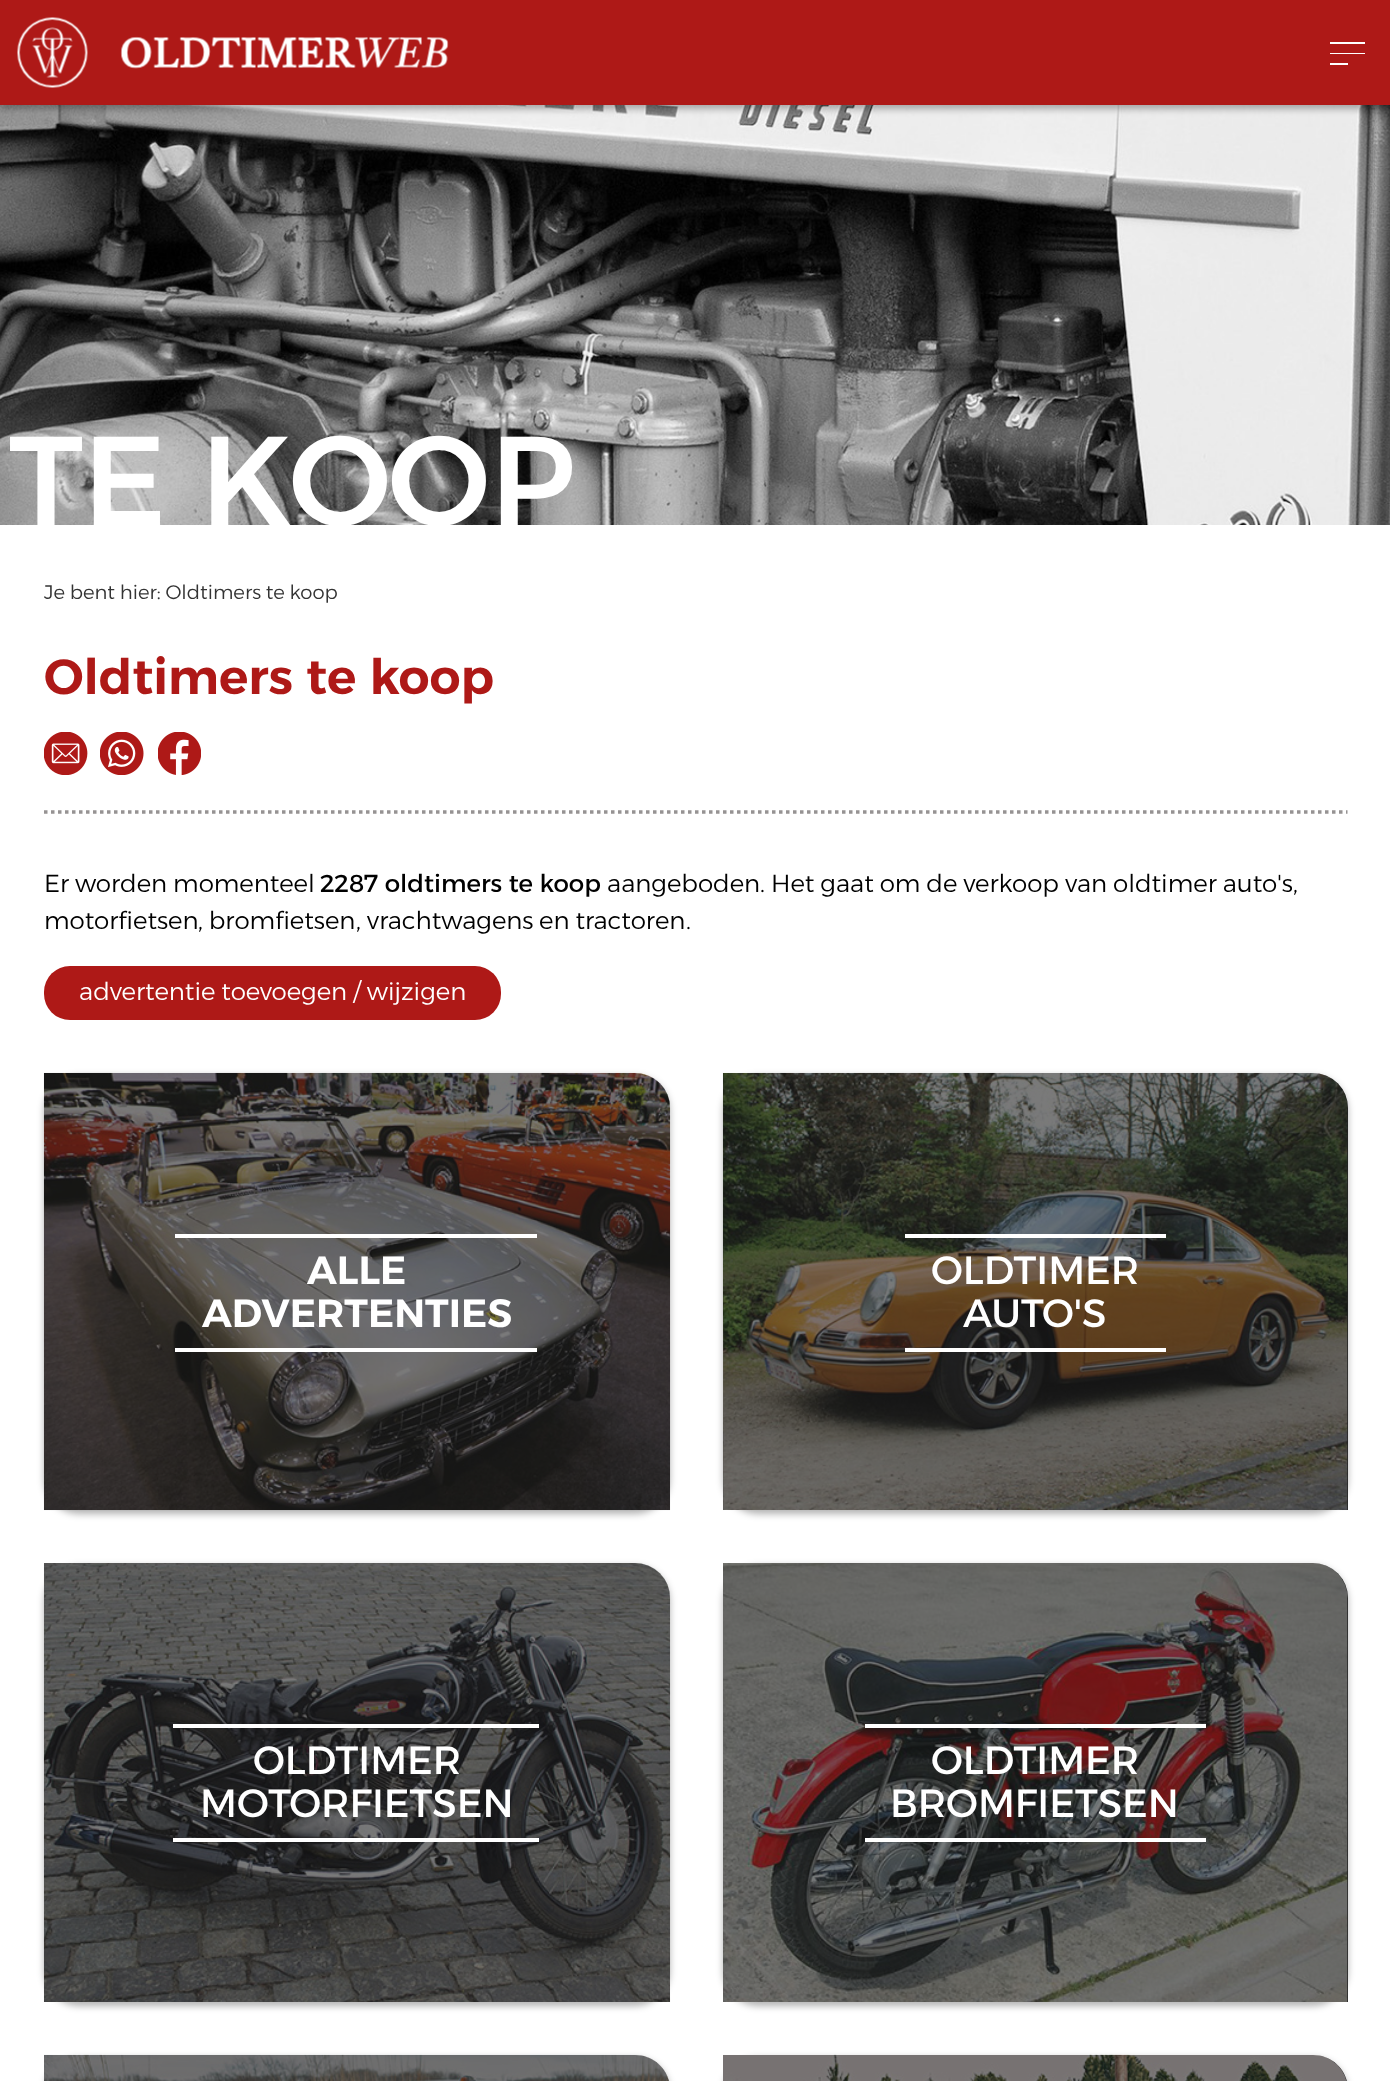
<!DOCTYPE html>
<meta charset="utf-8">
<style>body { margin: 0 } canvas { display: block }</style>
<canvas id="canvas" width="1390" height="2081"></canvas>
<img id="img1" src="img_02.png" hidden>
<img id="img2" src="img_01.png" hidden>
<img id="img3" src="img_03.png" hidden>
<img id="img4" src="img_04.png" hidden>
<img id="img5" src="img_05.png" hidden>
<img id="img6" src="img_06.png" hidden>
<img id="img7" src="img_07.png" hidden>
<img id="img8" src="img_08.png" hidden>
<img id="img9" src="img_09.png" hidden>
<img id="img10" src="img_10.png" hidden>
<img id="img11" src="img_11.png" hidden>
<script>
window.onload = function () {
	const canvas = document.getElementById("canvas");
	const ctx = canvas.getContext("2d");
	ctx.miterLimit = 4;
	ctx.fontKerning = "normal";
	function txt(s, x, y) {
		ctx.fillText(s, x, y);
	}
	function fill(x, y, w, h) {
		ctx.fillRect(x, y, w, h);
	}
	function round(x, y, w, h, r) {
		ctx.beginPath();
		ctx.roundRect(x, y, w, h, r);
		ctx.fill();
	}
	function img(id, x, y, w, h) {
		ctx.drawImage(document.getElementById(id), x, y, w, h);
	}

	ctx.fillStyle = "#FFFFFF";
	fill(0, 0, 1390, 2081);
	img("img1", 0, 105, 1390, 420);
	ctx.fillStyle = "rgba(0, 0, 0, 0.3)";
	ctx.filter = "blur(3.5px)";
	ctx.beginPath();
	ctx.rect(0, 4, 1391, 105);
	ctx.fill();
	ctx.filter = "none";
	ctx.fillStyle = "#AE1917";
	fill(0, 0, 1390, 105);
	img("img2", 17, 17, 432, 71);
	ctx.fillStyle = "#FFFFFF";
	fill(1330, 42, 35, 2);
	fill(1330, 53, 35, 1);
	fill(1330, 63, 18, 2);
	ctx.beginPath();
	ctx.moveTo(44, 812);
	ctx.lineTo(1347.5, 812);
	ctx.strokeStyle = "#969393";
	ctx.lineWidth = 3.5;
	ctx.setLineDash([3.5, 3.5]);
	ctx.stroke();
	img("img3", 44, 732, 44, 43);
	img("img4", 100, 732, 44, 43);
	img("img5", 158, 732, 43, 43);
	ctx.fillStyle = "#AE1917";
	round(44, 966, 457, 54, 26);
	ctx.fillStyle = "rgba(0, 0, 0, 0.3)";
	ctx.filter = "blur(3.5px)";
	ctx.beginPath();
	ctx.roundRect(44, 1076, 626, 438, 35);
	ctx.fill();
	ctx.filter = "none";
	ctx.fillStyle = "#222222";
	ctx.beginPath();
	ctx.roundRect(44, 1073, 626, 437, [0, 35, 0, 0]);
	ctx.fill();
	img("img6", 43, 1072, 628, 439);
	ctx.fillStyle = "#FFFFFF";
	fill(175, 1234, 362, 4);
	fill(175, 1348, 362, 4);
	ctx.fillStyle = "rgba(0, 0, 0, 0.3)";
	ctx.filter = "blur(3.5px)";
	ctx.beginPath();
	ctx.roundRect(723, 1076, 625, 438, 35);
	ctx.fill();
	ctx.filter = "none";
	ctx.fillStyle = "#222222";
	ctx.beginPath();
	ctx.roundRect(723, 1073, 625, 437, [0, 35, 0, 0]);
	ctx.fill();
	img("img7", 722, 1072, 626, 439);
	ctx.fillStyle = "#FFFFFF";
	fill(905, 1234, 261, 4);
	fill(905, 1348, 261, 4);
	ctx.fillStyle = "rgba(0, 0, 0, 0.3)";
	ctx.filter = "blur(3.5px)";
	ctx.beginPath();
	ctx.roundRect(44, 1566, 626, 440, 35);
	ctx.fill();
	ctx.filter = "none";
	ctx.fillStyle = "#222222";
	ctx.beginPath();
	ctx.roundRect(44, 1563, 626, 439, [0, 35, 0, 0]);
	ctx.fill();
	img("img8", 43, 1563, 628, 439);
	ctx.fillStyle = "#FFFFFF";
	fill(173, 1724, 366, 4);
	fill(173, 1838, 366, 4);
	ctx.fillStyle = "rgba(0, 0, 0, 0.3)";
	ctx.filter = "blur(3.5px)";
	ctx.beginPath();
	ctx.roundRect(723, 1566, 625, 440, 35);
	ctx.fill();
	ctx.filter = "none";
	ctx.fillStyle = "#222222";
	ctx.beginPath();
	ctx.roundRect(723, 1563, 625, 439, [0, 35, 0, 0]);
	ctx.fill();
	img("img9", 723, 1563, 625, 439);
	ctx.fillStyle = "#FFFFFF";
	fill(865, 1724, 341, 4);
	fill(865, 1838, 341, 4);
	ctx.fillStyle = "rgba(0, 0, 0, 0.3)";
	ctx.filter = "blur(3.5px)";
	ctx.beginPath();
	ctx.roundRect(44, 2058, 626, 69, 35);
	ctx.fill();
	ctx.filter = "none";
	ctx.fillStyle = "#222222";
	ctx.beginPath();
	ctx.moveTo(44, 2055);
	ctx.lineTo(635, 2055);
	ctx.bezierCurveTo(654.5, 2055, 670, 2070.5, 670, 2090);
	ctx.lineTo(670, 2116);
	ctx.lineTo(44, 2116);
	ctx.closePath();
	ctx.fill();
	img("img10", 44, 2054, 625, 27);
	ctx.fillStyle = "rgba(0, 0, 0, 0.3)";
	ctx.filter = "blur(3.5px)";
	ctx.beginPath();
	ctx.roundRect(723, 2058, 625, 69, 35);
	ctx.fill();
	ctx.filter = "none";
	ctx.fillStyle = "#222222";
	ctx.beginPath();
	ctx.moveTo(723, 2055);
	ctx.lineTo(1313, 2055);
	ctx.bezierCurveTo(1332.5, 2055, 1348, 2070.5, 1348, 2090);
	ctx.lineTo(1348, 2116);
	ctx.lineTo(723, 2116);
	ctx.closePath();
	ctx.fill();
	img("img11", 723, 2054, 624, 27);
	ctx.font = "500 126px Alexandria";
	ctx.fillStyle = "#FFFFFF";
	txt("TE KOOP", 9, 525);
	ctx.font = "300 19.6px Alexandria";
	ctx.fillStyle = "#333333";
	txt("Je bent hier: Oldtimers te koop", 44, 599);
	ctx.font = "600 49px Alexandria";
	ctx.fillStyle = "#AE1917";
	txt("Oldtimers te koop", 44, 694);
	ctx.font = "300 24.5px Alexandria";
	ctx.fillStyle = "#000000";
	txt("Er worden momenteel", 44, 892);
	ctx.font = "24.5px Alexandria";
	txt("2287 oldtimers te koop", 320, 892);
	ctx.font = "300 24.5px Alexandria";
	txt("aangeboden. Het gaat om de verkoop", 607, 892);
	txt("van oldtimer auto's", 1065, 892);
	txt(",", 1293, 892);
	txt("motorfietsen", 44, 929);
	txt(", bromfietsen", 198, 929);
	txt(", vrachtwagens", 356, 929);
	txt("en tractoren", 539, 929);
	txt(".", 686, 929);
	ctx.fillStyle = "#FFFFFF";
	txt("advertentie toevoegen / wijzigen", 79, 1000);
	ctx.font = "600 39.25px Alexandria";
	txt("ALLE", 307, 1284);
	txt("ADVERTENTIES", 202, 1327);
	ctx.font = "39.25px Alexandria";
	txt("OLDTIMER", 931, 1284);
	txt("AUTO'S", 963, 1327);
	txt("OLDTIMER", 253, 1774);
	txt("MOTORFIETSEN", 200, 1817);
	txt("OLDTIMER", 931, 1774);
	txt("BROMFIETSEN", 890, 1817);
};
</script>
